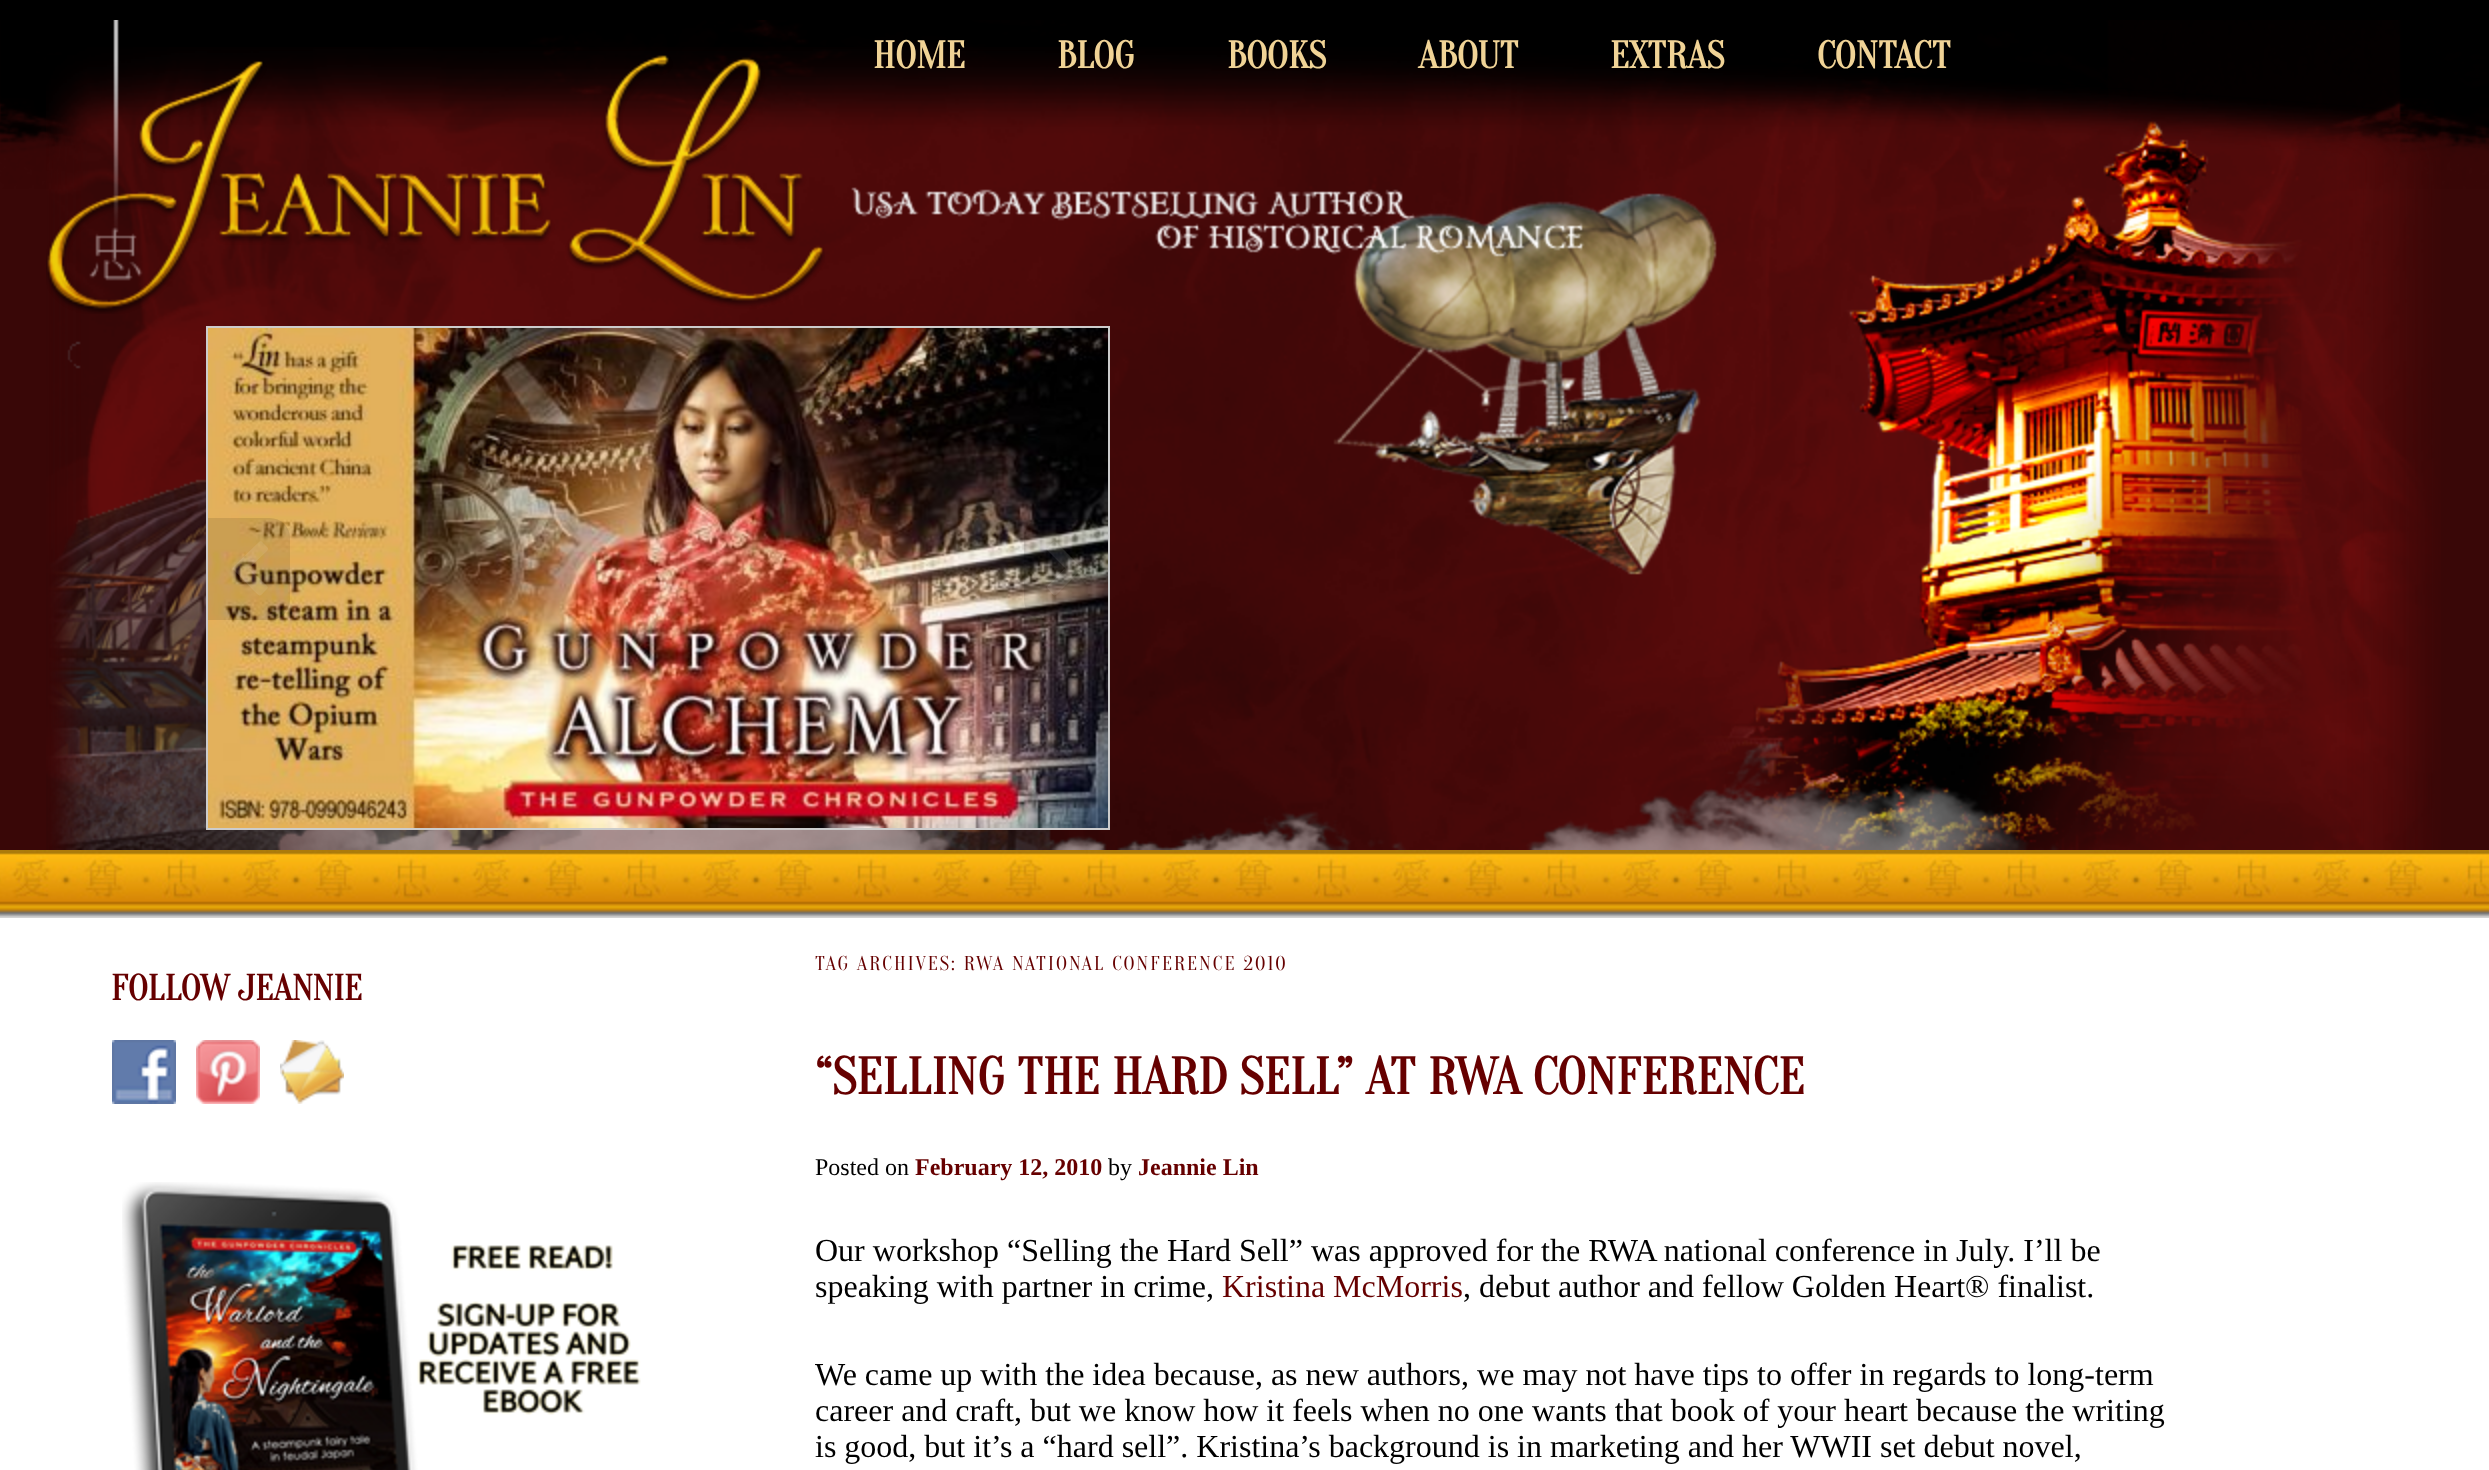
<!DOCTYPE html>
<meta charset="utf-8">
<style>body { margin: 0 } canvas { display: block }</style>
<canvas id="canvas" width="2489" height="1470"></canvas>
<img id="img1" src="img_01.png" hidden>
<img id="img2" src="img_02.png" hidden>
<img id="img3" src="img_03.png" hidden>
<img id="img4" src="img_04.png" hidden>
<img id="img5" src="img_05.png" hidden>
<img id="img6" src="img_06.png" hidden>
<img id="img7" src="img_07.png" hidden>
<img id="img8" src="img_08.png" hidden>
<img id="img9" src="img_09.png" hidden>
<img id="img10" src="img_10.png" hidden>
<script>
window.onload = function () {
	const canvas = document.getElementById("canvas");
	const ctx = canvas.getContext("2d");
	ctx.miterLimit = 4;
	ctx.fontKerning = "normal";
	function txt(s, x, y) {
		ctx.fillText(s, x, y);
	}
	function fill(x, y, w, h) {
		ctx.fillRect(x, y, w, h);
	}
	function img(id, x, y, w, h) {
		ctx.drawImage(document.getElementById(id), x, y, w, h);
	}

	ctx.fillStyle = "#000000";
	fill(0, 0, 2489, 1470);
	ctx.fillStyle = "#390707";
	fill(0, 20, 2489, 830);
	img("img1", 0, 20, 2489, 169);
	img("img2", 46, 47, 2395, 803);
	img("img3", 46, 20, 779, 294);
	img("img4", 851, 187, 734, 70);
	ctx.strokeStyle = "#CCCCCC";
	ctx.lineWidth = 2;
	ctx.strokeRect(207, 327, 902, 502);
	img("img5", 208, 328, 900, 500);
	ctx.fillStyle = "rgba(0, 0, 0, 0.1)";
	ctx.beginPath();
	ctx.roundRect(208, 518, 82, 102, [0, 20, 20, 0]);
	ctx.fill();
	ctx.fillStyle = "rgba(255, 255, 255, 0.1)";
	ctx.beginPath();
	ctx.moveTo(267, 551);
	ctx.lineTo(249, 568);
	ctx.lineTo(264, 583);
	ctx.bezierCurveTo(269, 588, 269, 587, 265, 591);
	ctx.bezierCurveTo(259, 597, 261, 597, 254, 591);
	ctx.lineTo(233, 569);
	ctx.lineTo(233, 567);
	ctx.lineTo(259, 542);
	ctx.bezierCurveTo(261, 540, 263, 543, 264, 544);
	ctx.lineTo(268, 548);
	ctx.bezierCurveTo(268, 549, 268, 550, 267, 551);
	ctx.closePath();
	ctx.fill();
	ctx.fillStyle = "rgba(0, 0, 0, 0.1)";
	ctx.beginPath();
	ctx.roundRect(1024, 518, 84, 102, [20, 0, 0, 20]);
	ctx.fill();
	ctx.fillStyle = "rgba(255, 255, 255, 0.1)";
	ctx.beginPath();
	ctx.moveTo(1081, 570);
	ctx.lineTo(1060, 591);
	ctx.bezierCurveTo(1054, 597, 1055, 597, 1049, 590);
	ctx.bezierCurveTo(1044, 586, 1050, 584, 1054, 580);
	ctx.lineTo(1065, 568);
	ctx.lineTo(1047, 550);
	ctx.bezierCurveTo(1047, 548, 1049, 546, 1050, 545);
	ctx.bezierCurveTo(1055, 540, 1054, 540, 1060, 546);
	ctx.lineTo(1077, 563);
	ctx.bezierCurveTo(1077, 563, 1082, 567, 1082, 569);
	ctx.closePath();
	ctx.fill();
	img("img6", 0, 850, 2489, 68);
	ctx.fillStyle = "#FFFFFF";
	fill(0, 918, 2489, 552);
	img("img7", 112, 1040, 64, 64);
	img("img8", 196, 1040, 64, 64);
	img("img9", 280, 1040, 64, 64);
	img("img10", 122, 1182, 519, 288);
	ctx.font = "bold 38px Oranienbaum";
	ctx.fillStyle = "#F0D396";
	txt("HOME", 873, 68);
	txt("BLOG", 1057, 68);
	txt("BOOKS", 1227, 68);
	txt("ABOUT", 1418, 68);
	txt("EXTRAS", 1610, 68);
	txt("CONTACT", 1817, 68);
	ctx.font = "bold 36px Oranienbaum";
	ctx.fillStyle = "#660000";
	txt("FOLLOW JEANNIE", 111, 1000);
	ctx.letterSpacing = "2px";
	ctx.font = "20px Oranienbaum";
	txt("TAG ARCHIVES: RWA NATIONAL CONFERENCE 2010", 815, 970);
	ctx.letterSpacing = "0px";
	ctx.font = "bold 52px Oranienbaum";
	txt("“SELLING THE HARD SELL” AT RWA CONFERENCE", 815, 1094);
	ctx.font = "24px Liberation Serif";
	ctx.fillStyle = "#000000";
	txt("Posted on", 815, 1175);
	ctx.font = "bold 24px Liberation Serif";
	ctx.fillStyle = "#660000";
	txt("February 12, 2010", 915, 1175);
	ctx.font = "24px Liberation Serif";
	ctx.fillStyle = "#000000";
	txt("by", 1108, 1175);
	ctx.font = "bold 24px Liberation Serif";
	ctx.fillStyle = "#660000";
	txt("Jeannie Lin", 1138, 1175);
	ctx.font = "32px Liberation Serif";
	ctx.fillStyle = "#000000";
	txt("Our workshop “Selling the Hard Sell” was approved for the RWA national conference in July. I’ll be", 815, 1261);
	txt("speaking with partner in crime,", 815, 1297);
	ctx.fillStyle = "#660000";
	txt("Kristina McMorris", 1222, 1297);
	ctx.fillStyle = "#000000";
	txt(", debut author and fellow Golden Heart® finalist.", 1463, 1297);
	txt("We came up with the idea because, as new authors, we may not have tips to offer in regards to long-term", 815, 1385);
	txt("career and craft, but we know how it feels when no one wants that book of your heart because the writing", 815, 1421);
	txt("is good, but it’s a “hard sell”. Kristina’s background is in marketing and her WWII set debut novel,", 815, 1457);
};
</script>
